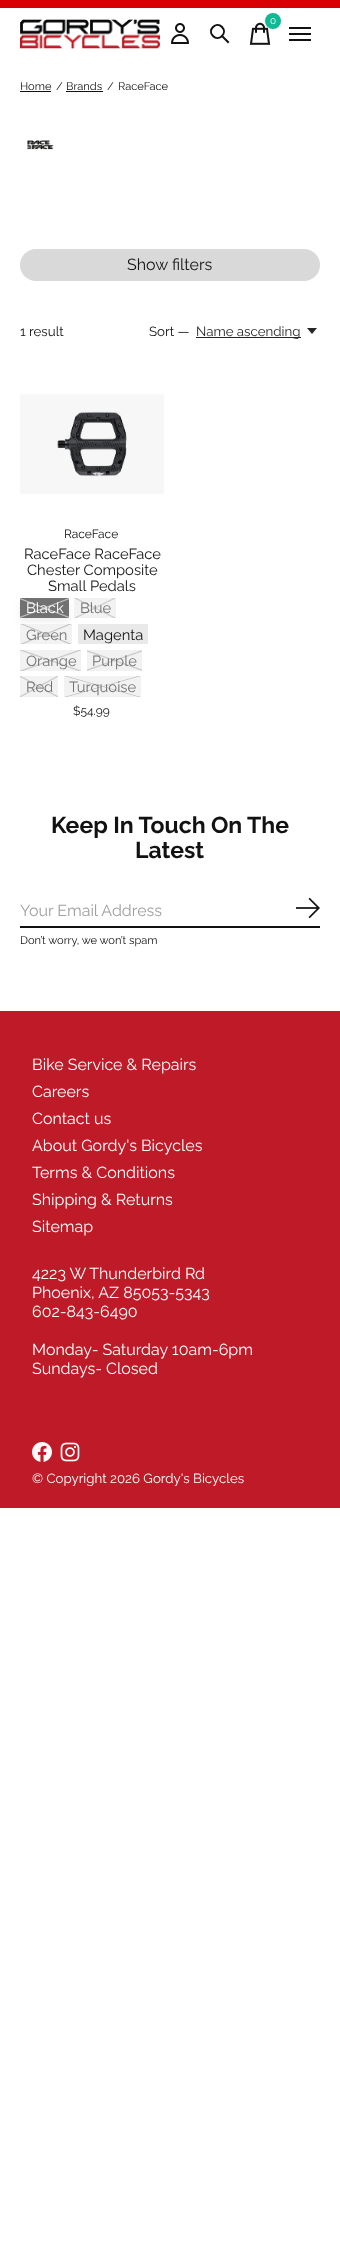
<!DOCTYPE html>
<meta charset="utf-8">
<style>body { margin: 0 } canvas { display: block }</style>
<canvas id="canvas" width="340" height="2252"></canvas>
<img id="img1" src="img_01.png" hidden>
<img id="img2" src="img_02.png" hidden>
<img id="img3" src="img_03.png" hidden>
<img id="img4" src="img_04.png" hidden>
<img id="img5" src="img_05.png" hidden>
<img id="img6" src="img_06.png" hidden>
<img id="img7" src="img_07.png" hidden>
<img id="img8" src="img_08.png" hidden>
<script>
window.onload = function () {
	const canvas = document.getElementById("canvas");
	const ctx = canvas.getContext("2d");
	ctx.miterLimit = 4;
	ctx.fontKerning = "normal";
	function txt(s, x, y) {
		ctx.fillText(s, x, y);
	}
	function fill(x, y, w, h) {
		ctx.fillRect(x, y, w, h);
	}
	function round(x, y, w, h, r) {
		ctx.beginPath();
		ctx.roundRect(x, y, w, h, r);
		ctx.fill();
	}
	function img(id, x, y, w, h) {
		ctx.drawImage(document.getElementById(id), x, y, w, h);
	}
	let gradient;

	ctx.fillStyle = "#FFFFFF";
	fill(0, 0, 340, 2252);
	ctx.fillStyle = "#D80004";
	fill(0, 0, 340, 8);
	img("img1", 20, 19, 140, 30);
	img("img2", 249, 22, 22, 23);
	ctx.fillStyle = "#0EB994";
	ctx.beginPath();
	ctx.arc(273, 21, 8, 0, Math.PI * 2);
	ctx.fill();
	img("img3", 171, 23, 18, 21);
	ctx.beginPath();
	ctx.moveTo(222, 36);
	ctx.lineTo(228, 42);
	ctx.moveTo(222, 27);
	ctx.bezierCurveTo(228, 33, 219, 42, 213, 36);
	ctx.bezierCurveTo(207, 30, 216, 21, 222, 27);
	ctx.strokeStyle = "#121212";
	ctx.lineWidth = 2;
	ctx.lineCap = "square";
	ctx.stroke();
	ctx.fillStyle = "#121212";
	fill(289, 27, 22, 2);
	fill(289, 33, 22, 2);
	fill(289, 39, 22, 2);
	fill(20, 91, 31, 1);
	fill(66, 91, 37, 1);
	img("img4", 27, 140, 27, 10);
	ctx.fillStyle = "#D9D9D9";
	round(20, 249, 300, 32, 16);
	ctx.fillStyle = "#262626";
	fill(196, 337, 105, 1);
	ctx.beginPath();
	ctx.moveTo(307, 328);
	ctx.lineTo(312, 334);
	ctx.lineTo(317, 328);
	ctx.closePath();
	ctx.fill();
	img("img5", 20, 394, 144, 100);
	ctx.fillStyle = "rgba(102, 102, 102, 0.1)";
	ctx.filter = "blur(3px)";
	ctx.beginPath();
	ctx.rect(20, 602, 49, 20);
	ctx.fill();
	ctx.filter = "none";
	gradient = ctx.createLinearGradient(38, 625, 51, 591);
	gradient.addColorStop(0, "#717171");
	gradient.addColorStop(0.47, "#717171");
	gradient.addColorStop(0.5, "#C6C6C6");
	gradient.addColorStop(0.53, "#717171");
	gradient.addColorStop(1, "#717171");
	ctx.fillStyle = gradient;
	fill(20, 598, 49, 20);
	gradient = ctx.createLinearGradient(51, 625, 38, 591);
	gradient.addColorStop(0, "rgba(102, 102, 102, 0)");
	gradient.addColorStop(0.47, "rgba(198, 198, 198, 0)");
	gradient.addColorStop(0.5, "#C6C6C6");
	gradient.addColorStop(0.53, "rgba(198, 198, 198, 0)");
	gradient.addColorStop(1, "rgba(102, 102, 102, 0)");
	ctx.fillStyle = gradient;
	fill(20, 598, 49, 20);
	gradient = ctx.createLinearGradient(87, 624, 103, 592);
	gradient.addColorStop(0, "#F2F2F2");
	gradient.addColorStop(0.47, "#F2F2F2");
	gradient.addColorStop(0.5, "#C6C6C6");
	gradient.addColorStop(0.53, "#F2F2F2");
	gradient.addColorStop(1, "#F2F2F2");
	ctx.fillStyle = gradient;
	fill(74, 598, 42, 20);
	gradient = ctx.createLinearGradient(103, 624, 87, 592);
	gradient.addColorStop(0, "rgba(102, 102, 102, 0)");
	gradient.addColorStop(0.47, "rgba(198, 198, 198, 0)");
	gradient.addColorStop(0.5, "#C6C6C6");
	gradient.addColorStop(0.53, "rgba(198, 198, 198, 0)");
	gradient.addColorStop(1, "rgba(102, 102, 102, 0)");
	ctx.fillStyle = gradient;
	fill(74, 598, 42, 20);
	gradient = ctx.createLinearGradient(39, 651, 53, 617);
	gradient.addColorStop(0, "#F2F2F2");
	gradient.addColorStop(0.47, "#F2F2F2");
	gradient.addColorStop(0.5, "#C1C1C1");
	gradient.addColorStop(0.53, "#F2F2F2");
	gradient.addColorStop(1, "#F2F2F2");
	ctx.fillStyle = gradient;
	fill(20, 624, 52, 20);
	gradient = ctx.createLinearGradient(53, 651, 39, 617);
	gradient.addColorStop(0, "rgba(0, 0, 0, 0)");
	gradient.addColorStop(0.47, "rgba(160, 160, 160, 0)");
	gradient.addColorStop(0.5, "rgba(160, 160, 160, 0.6)");
	gradient.addColorStop(0.53, "rgba(160, 160, 160, 0)");
	gradient.addColorStop(1, "rgba(0, 0, 0, 0)");
	ctx.fillStyle = gradient;
	fill(20, 624, 52, 20);
	ctx.fillStyle = "#E9E9E9";
	fill(78, 624, 70, 20);
	gradient = ctx.createLinearGradient(44, 679, 57, 642);
	gradient.addColorStop(0, "#F2F2F2");
	gradient.addColorStop(0.47, "#F2F2F2");
	gradient.addColorStop(0.5, "#C6C6C6");
	gradient.addColorStop(0.53, "#F2F2F2");
	gradient.addColorStop(1, "#F2F2F2");
	ctx.fillStyle = gradient;
	fill(20, 650, 61, 21);
	gradient = ctx.createLinearGradient(57, 679, 44, 642);
	gradient.addColorStop(0, "rgba(102, 102, 102, 0)");
	gradient.addColorStop(0.47, "rgba(198, 198, 198, 0)");
	gradient.addColorStop(0.5, "#C6C6C6");
	gradient.addColorStop(0.53, "rgba(198, 198, 198, 0)");
	gradient.addColorStop(1, "rgba(102, 102, 102, 0)");
	ctx.fillStyle = gradient;
	fill(20, 650, 61, 21);
	gradient = ctx.createLinearGradient(108, 679, 121, 642);
	gradient.addColorStop(0, "#F2F2F2");
	gradient.addColorStop(0.47, "#F2F2F2");
	gradient.addColorStop(0.5, "#C6C6C6");
	gradient.addColorStop(0.53, "#F2F2F2");
	gradient.addColorStop(1, "#F2F2F2");
	ctx.fillStyle = gradient;
	fill(87, 650, 55, 21);
	gradient = ctx.createLinearGradient(121, 679, 108, 642);
	gradient.addColorStop(0, "rgba(102, 102, 102, 0)");
	gradient.addColorStop(0.47, "rgba(198, 198, 198, 0)");
	gradient.addColorStop(0.5, "#C6C6C6");
	gradient.addColorStop(0.53, "rgba(198, 198, 198, 0)");
	gradient.addColorStop(1, "rgba(102, 102, 102, 0)");
	ctx.fillStyle = gradient;
	fill(87, 650, 55, 21);
	gradient = ctx.createLinearGradient(30, 703, 48, 670);
	gradient.addColorStop(0, "#F2F2F2");
	gradient.addColorStop(0.47, "#F2F2F2");
	gradient.addColorStop(0.5, "#C6C6C6");
	gradient.addColorStop(0.53, "#F2F2F2");
	gradient.addColorStop(1, "#F2F2F2");
	ctx.fillStyle = gradient;
	fill(20, 676, 38, 21);
	gradient = ctx.createLinearGradient(48, 703, 30, 670);
	gradient.addColorStop(0, "rgba(102, 102, 102, 0)");
	gradient.addColorStop(0.47, "rgba(198, 198, 198, 0)");
	gradient.addColorStop(0.5, "#C6C6C6");
	gradient.addColorStop(0.53, "rgba(198, 198, 198, 0)");
	gradient.addColorStop(1, "rgba(102, 102, 102, 0)");
	ctx.fillStyle = gradient;
	fill(20, 676, 38, 21);
	gradient = ctx.createLinearGradient(97, 706, 108, 667);
	gradient.addColorStop(0, "#F2F2F2");
	gradient.addColorStop(0.48, "#F2F2F2");
	gradient.addColorStop(0.5, "#C6C6C6");
	gradient.addColorStop(0.52, "#F2F2F2");
	gradient.addColorStop(1, "#F2F2F2");
	ctx.fillStyle = gradient;
	fill(64, 676, 77, 21);
	gradient = ctx.createLinearGradient(108, 706, 97, 667);
	gradient.addColorStop(0, "rgba(102, 102, 102, 0)");
	gradient.addColorStop(0.48, "rgba(198, 198, 198, 0)");
	gradient.addColorStop(0.5, "#C6C6C6");
	gradient.addColorStop(0.52, "rgba(198, 198, 198, 0)");
	gradient.addColorStop(1, "rgba(102, 102, 102, 0)");
	ctx.fillStyle = gradient;
	fill(64, 676, 77, 21);
	ctx.fillStyle = "#121212";
	fill(20, 926, 300, 2);
	img("img6", 296, 897, 24, 22);
	ctx.fillStyle = "#BE1A27";
	fill(0, 1011, 340, 497);
	img("img7", 32, 1442, 20, 20);
	img("img8", 60, 1442, 20, 20);
	ctx.font = "10px Raleway";
	ctx.fillStyle = "#FFFFFF";
	txt("0", 270, 24);
	ctx.font = "11.1px Raleway";
	ctx.fillStyle = "#121212";
	txt("Home", 20, 90);
	txt("/", 56, 90);
	txt("Brands", 66, 90);
	txt("/", 107, 90);
	txt("RaceFace", 118, 90);
	ctx.font = "16px Raleway";
	txt("Show filters", 127, 270);
	ctx.font = "13.3px Raleway";
	txt("1 result", 20, 336);
	txt("Sort —", 149, 336);
	ctx.fillStyle = "#262626";
	txt("Name ascending", 196, 336);
	ctx.font = "12px Raleway";
	ctx.fillStyle = "#121212";
	txt("RaceFace", 64, 538);
	ctx.font = "14.75px Raleway";
	txt("RaceFace RaceFace", 24, 559);
	txt("Chester Composite", 27, 575);
	txt("Small Pedals", 48, 591);
	ctx.fillStyle = "#FFFFFF";
	txt("Black", 26, 613);
	ctx.fillStyle = "#717171";
	txt("Blue", 80, 613);
	txt("Green", 26, 640);
	ctx.fillStyle = "#121212";
	txt("Magenta", 83, 640);
	ctx.fillStyle = "#717171";
	txt("Orange", 26, 666);
	txt("Purple", 92, 666);
	txt("Red", 26, 692);
	txt("Turquoise", 69, 692);
	ctx.font = "12px Raleway";
	ctx.fillStyle = "#121212";
	txt("$54.99", 73, 715);
	ctx.font = "bold 23px Raleway";
	txt("Keep In Touch On The", 51, 833);
	txt("Latest", 135, 858);
	ctx.font = "16px Raleway";
	ctx.fillStyle = "#A0A0A0";
	txt("Your Email Address", 20, 916);
	ctx.font = "11.1px Raleway";
	ctx.fillStyle = "#121212";
	txt("Don’t worry, we won’t spam", 20, 944);
	ctx.font = "16px Raleway";
	ctx.fillStyle = "#FFFFFF";
	txt("Bike Service & Repairs", 32, 1070);
	txt("Careers", 32, 1097);
	txt("Contact us", 32, 1124);
	txt("About Gordy's Bicycles", 32, 1151);
	txt("Terms & Conditions", 32, 1178);
	txt("Shipping & Returns", 32, 1205);
	txt("Sitemap", 32, 1232);
	txt("4223 W Thunderbird Rd", 32, 1279);
	txt("Phoenix, AZ 85053-5343", 32, 1298);
	txt("602-843-6490", 32, 1317);
	txt("Monday- Saturday 10am-6pm", 32, 1355);
	txt("Sundays- Closed", 32, 1374);
	ctx.font = "13.3px Raleway";
	txt("© Copyright 2026 Gordy's Bicycles", 32, 1483);
};
</script>
